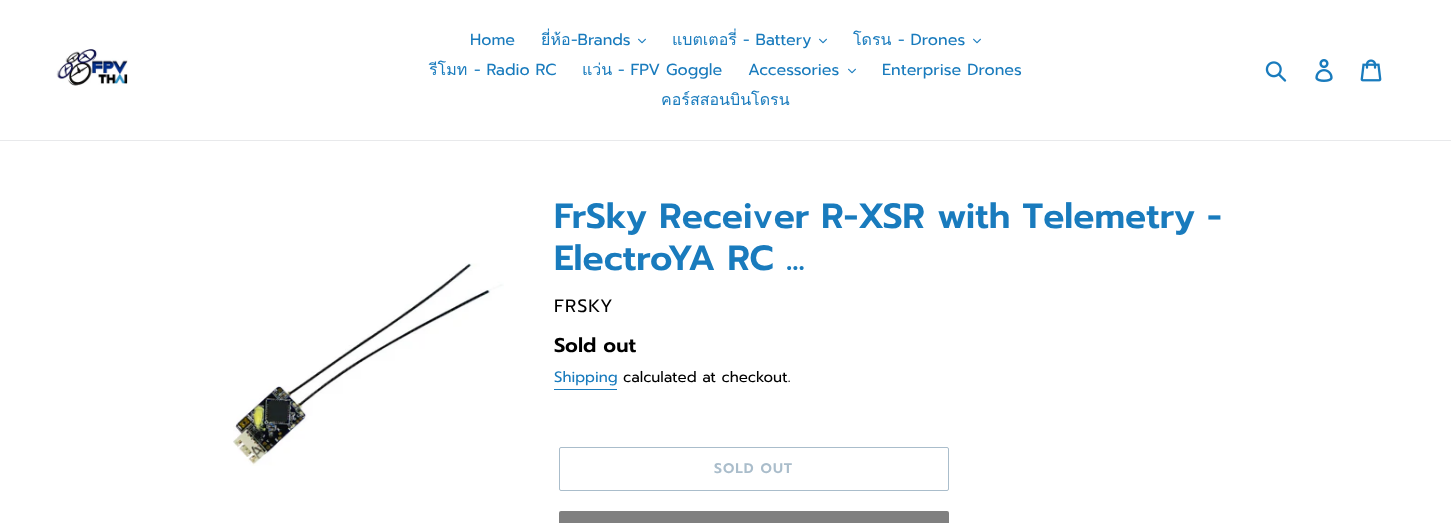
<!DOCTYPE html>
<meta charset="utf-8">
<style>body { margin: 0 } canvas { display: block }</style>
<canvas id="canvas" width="1451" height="523"></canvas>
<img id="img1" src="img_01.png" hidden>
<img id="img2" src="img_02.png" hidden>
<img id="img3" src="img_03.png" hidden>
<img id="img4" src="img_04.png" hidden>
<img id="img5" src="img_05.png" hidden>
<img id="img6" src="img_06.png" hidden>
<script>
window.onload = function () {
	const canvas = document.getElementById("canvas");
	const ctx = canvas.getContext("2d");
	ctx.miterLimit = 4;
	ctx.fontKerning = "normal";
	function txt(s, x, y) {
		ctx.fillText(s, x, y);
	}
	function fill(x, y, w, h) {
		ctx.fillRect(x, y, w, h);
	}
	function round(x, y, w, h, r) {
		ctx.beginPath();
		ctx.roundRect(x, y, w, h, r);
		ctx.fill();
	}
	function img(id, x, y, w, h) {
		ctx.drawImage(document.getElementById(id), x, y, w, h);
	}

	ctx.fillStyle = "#FFFFFF";
	fill(0, 0, 1451, 523);
	ctx.fillStyle = "#E8E9EB";
	fill(0, 140, 1451, 1);
	img("img1", 56, 49, 72, 37);
	img("img2", 638, 38, 8, 6);
	img("img2", 819, 38, 8, 6);
	img("img2", 973, 38, 8, 6);
	img("img2", 848, 68, 8, 6);
	img("img3", 1265, 61, 22, 21);
	img("img4", 1315, 59, 18, 23);
	img("img5", 1360, 59, 22, 23);
	img("img6", 233, 263, 271, 203);
	ctx.fillStyle = "#197BBD";
	fill(554, 389, 63, 1);
	ctx.beginPath();
	ctx.roundRect(559.5, 447.5, 389, 43, 1.5);
	ctx.strokeStyle = "#AABDCB";
	ctx.stroke();
	ctx.fillStyle = "#808080";
	round(559, 511, 390, 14, 2);
	ctx.font = "16px Prompt";
	ctx.fillStyle = "#197BBD";
	txt("Home", 470, 45);
	ctx.font = "16px Loma";
	txt("ยี่ห้อ", 541, 45);
	ctx.font = "16px Prompt";
	txt("-Brands", 571, 45);
	ctx.font = "16px Loma";
	txt("แบตเตอรี่", 672, 45);
	ctx.font = "16px Prompt";
	txt("- Battery", 743, 45);
	ctx.font = "16px Loma";
	txt("โดรน", 853, 45);
	ctx.font = "16px Prompt";
	txt("- Drones", 898, 45);
	ctx.font = "16px Loma";
	txt("รีโมท", 429, 75);
	ctx.font = "16px Prompt";
	txt("- Radio RC", 474, 75);
	ctx.font = "16px Loma";
	txt("แว่น", 582, 75);
	ctx.font = "16px Prompt";
	txt("- FPV Goggle", 618, 75);
	txt("Accessories", 748, 75);
	txt("Enterprise Drones", 882, 75);
	ctx.font = "16px Loma";
	txt("คอร์สสอนบินโดรน", 661, 105);
	ctx.font = "600 35px Prompt";
	txt("FrSky Receiver R-XSR with Telemetry -", 554, 228);
	txt("ElectroYA RC ...", 554, 270);
	ctx.letterSpacing = "1px";
	ctx.font = "18px Prompt";
	ctx.fillStyle = "#000000";
	txt("FRSKY", 554, 312);
	ctx.letterSpacing = "0px";
	ctx.font = "600 20px Prompt";
	txt("Sold out", 554, 352);
	ctx.font = "15px Prompt";
	ctx.fillStyle = "#197BBD";
	txt("Shipping", 554, 382);
	ctx.fillStyle = "#000000";
	txt("calculated at checkout.", 623, 382);
	ctx.letterSpacing = "1px";
	ctx.font = "600 14px Prompt";
	ctx.fillStyle = "#AABDCB";
	txt("SOLD OUT", 714, 473);
};
</script>
